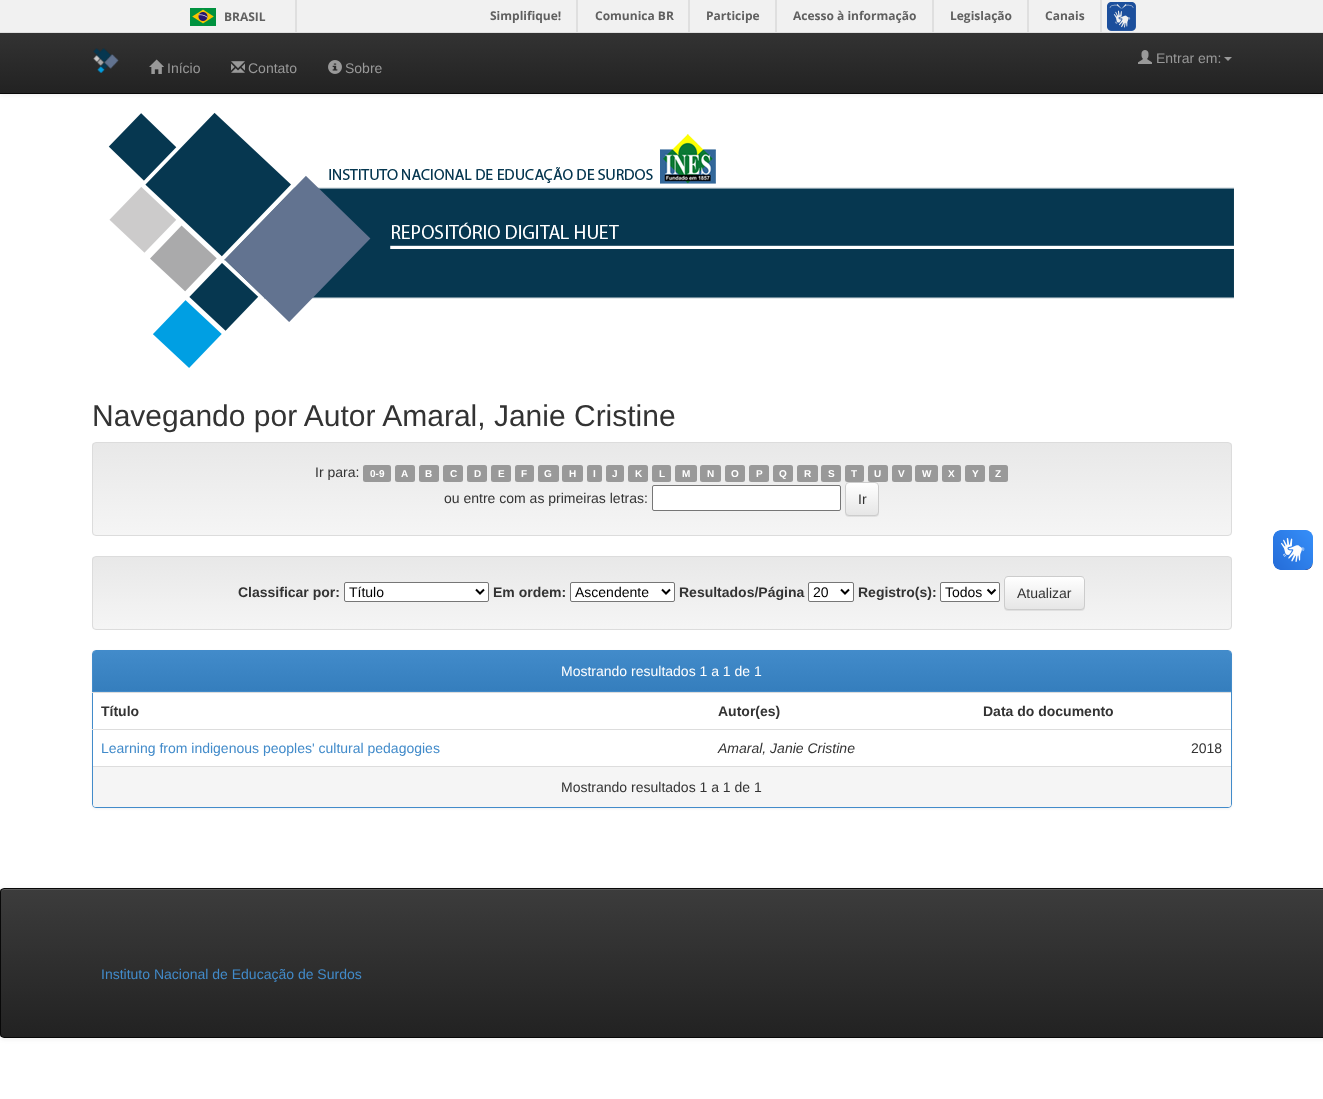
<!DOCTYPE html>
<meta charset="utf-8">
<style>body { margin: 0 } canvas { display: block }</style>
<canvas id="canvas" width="1323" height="1099"></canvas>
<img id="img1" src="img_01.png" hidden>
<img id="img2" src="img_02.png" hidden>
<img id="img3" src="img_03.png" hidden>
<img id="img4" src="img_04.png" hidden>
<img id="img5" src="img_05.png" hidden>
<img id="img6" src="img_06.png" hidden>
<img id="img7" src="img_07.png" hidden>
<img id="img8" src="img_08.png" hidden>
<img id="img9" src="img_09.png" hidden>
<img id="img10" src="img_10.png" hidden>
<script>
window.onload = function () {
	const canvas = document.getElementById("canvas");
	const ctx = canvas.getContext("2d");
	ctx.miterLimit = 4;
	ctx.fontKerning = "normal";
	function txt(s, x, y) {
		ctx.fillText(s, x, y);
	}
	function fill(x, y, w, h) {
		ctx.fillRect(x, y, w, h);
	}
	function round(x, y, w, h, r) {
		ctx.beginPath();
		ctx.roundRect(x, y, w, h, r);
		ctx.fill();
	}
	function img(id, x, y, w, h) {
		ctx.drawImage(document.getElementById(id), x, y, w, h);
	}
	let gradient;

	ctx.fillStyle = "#FFFFFF";
	fill(0, 0, 1323, 1099);
	ctx.fillStyle = "rgba(0, 0, 0, 0.07)";
	ctx.filter = "blur(2.5px)";
	ctx.beginPath();
	ctx.rect(0, 1, 1323, 94);
	ctx.fill();
	ctx.filter = "none";
	gradient = ctx.createLinearGradient(662, 0, 662, 93);
	gradient.addColorStop(0, "#3C3C3C");
	gradient.addColorStop(1, "#222222");
	ctx.fillStyle = gradient;
	fill(0, 33, 1323, 60);
	ctx.fillStyle = "#080808";
	fill(0, 93, 1323, 1);
	ctx.fillStyle = "#F1F1F1";
	fill(0, 0, 1323, 32);
	ctx.fillStyle = "#DFDFDF";
	fill(0, 32, 1323, 1);
	fill(295, 0, 2, 32);
	img("img1", 190, 8, 26, 18);
	fill(576, 0, 2, 32);
	fill(688, 0, 2, 32);
	fill(775, 0, 2, 32);
	fill(932, 0, 2, 32);
	fill(1027, 0, 2, 32);
	fill(1100, 0, 2, 32);
	img("img2", 1107, 2, 29, 29);
	img("img3", 93, 48, 26, 25);
	img("img4", 1138, 50, 14, 14);
	ctx.fillStyle = "#999999";
	ctx.beginPath();
	ctx.moveTo(1224, 57);
	ctx.lineTo(1232, 57);
	ctx.lineTo(1228, 61);
	ctx.closePath();
	ctx.fill();
	img("img5", 149, 59, 15, 15);
	img("img6", 231, 61, 14, 12);
	img("img7", 328, 60, 14, 14);
	img("img8", 108, 112, 1126, 256);
	ctx.save();
	ctx.beginPath();
	ctx.roundRect(92, 442, 1140, 94, 4);
	ctx.clip();
	gradient = ctx.createLinearGradient(662, 443, 662, 535);
	gradient.addColorStop(0, "#E8E8E8");
	gradient.addColorStop(1, "#F5F5F5");
	ctx.fillStyle = gradient;
	fill(92, 443, 1140, 92);
	ctx.restore();
	ctx.beginPath();
	ctx.roundRect(92.5, 442.5, 1139, 93, 3.5);
	ctx.strokeStyle = "#DCDCDC";
	ctx.stroke();
	round(363, 465, 28, 17, 2.5);
	round(395, 465, 20, 17, 2.5);
	round(419, 465, 20, 17, 2.5);
	round(443, 465, 20, 17, 2.5);
	round(467, 465, 20, 17, 2.5);
	round(491, 465, 20, 17, 2.5);
	round(515, 465, 19, 17, 2.5);
	round(538, 465, 21, 17, 2.5);
	round(562, 465, 21, 17, 2.5);
	round(587, 465, 15, 17, 2.5);
	round(606, 465, 18, 17, 2.5);
	round(628, 465, 20, 17, 2.5);
	round(652, 465, 19, 17, 2.5);
	round(675, 465, 22, 17, 2.5);
	round(700, 465, 21, 17, 2.5);
	round(725, 465, 20, 17, 2.5);
	round(749, 465, 20, 17, 2.5);
	round(773, 465, 20, 17, 2.5);
	round(797, 465, 21, 17, 2.5);
	round(821, 465, 20, 17, 2.5);
	round(845, 465, 19, 17, 2.5);
	round(868, 465, 20, 17, 2.5);
	round(892, 465, 20, 17, 2.5);
	round(915, 465, 23, 17, 2.5);
	round(942, 465, 19, 17, 2.5);
	round(965, 465, 20, 17, 2.5);
	round(989, 465, 19, 17, 2.5);
	ctx.fillStyle = "#FFFFFF";
	ctx.beginPath();
	ctx.roundRect(652.5, 485.5, 188, 25, 1.5);
	ctx.fill();
	ctx.strokeStyle = "#767676";
	ctx.stroke();
	ctx.fillStyle = "rgba(0, 0, 0, 0.07)";
	ctx.filter = "blur(0.5px)";
	ctx.beginPath();
	ctx.roundRect(845, 483, 34, 34, 4);
	ctx.fill();
	ctx.filter = "none";
	ctx.save();
	ctx.beginPath();
	ctx.roundRect(845, 482, 34, 34, 4);
	ctx.clip();
	gradient = ctx.createLinearGradient(862, 483, 862, 515);
	gradient.addColorStop(0, "#FFFFFF");
	gradient.addColorStop(1, "#E6E6E6");
	ctx.fillStyle = gradient;
	fill(845, 483, 34, 32);
	ctx.restore();
	ctx.beginPath();
	ctx.roundRect(845.5, 482.5, 33, 33, 3.5);
	ctx.strokeStyle = "#CCCCCC";
	ctx.stroke();
	ctx.save();
	ctx.beginPath();
	ctx.roundRect(92, 556, 1140, 74, 4);
	ctx.clip();
	gradient = ctx.createLinearGradient(662, 557, 662, 629);
	gradient.addColorStop(0, "#E8E8E8");
	gradient.addColorStop(1, "#F5F5F5");
	ctx.fillStyle = gradient;
	fill(92, 557, 1140, 72);
	ctx.restore();
	ctx.beginPath();
	ctx.roundRect(92.5, 556.5, 1139, 73, 3.5);
	ctx.strokeStyle = "#DCDCDC";
	ctx.stroke();
	ctx.fillStyle = "#FFFFFF";
	ctx.beginPath();
	ctx.roundRect(344.5, 582.5, 144, 19, 1.5);
	ctx.fill();
	ctx.strokeStyle = "#767676";
	ctx.stroke();
	ctx.beginPath();
	ctx.moveTo(476, 589.5);
	ctx.lineTo(480, 593.5);
	ctx.lineTo(484, 589.5);
	ctx.strokeStyle = "#000000";
	ctx.lineWidth = 2;
	ctx.stroke();
	ctx.beginPath();
	ctx.roundRect(570.5, 582.5, 104, 19, 1.5);
	ctx.fill();
	ctx.strokeStyle = "#767676";
	ctx.lineWidth = 1;
	ctx.stroke();
	ctx.beginPath();
	ctx.moveTo(662, 589.5);
	ctx.lineTo(666, 593.5);
	ctx.lineTo(670, 589.5);
	ctx.strokeStyle = "#000000";
	ctx.lineWidth = 2;
	ctx.stroke();
	ctx.beginPath();
	ctx.roundRect(808.5, 582.5, 45, 19, 1.5);
	ctx.fill();
	ctx.strokeStyle = "#767676";
	ctx.lineWidth = 1;
	ctx.stroke();
	ctx.beginPath();
	ctx.moveTo(841, 589.5);
	ctx.lineTo(845, 593.5);
	ctx.lineTo(849, 589.5);
	ctx.strokeStyle = "#000000";
	ctx.lineWidth = 2;
	ctx.stroke();
	ctx.beginPath();
	ctx.roundRect(940.5, 582.5, 59, 19, 1.5);
	ctx.fill();
	ctx.strokeStyle = "#767676";
	ctx.lineWidth = 1;
	ctx.stroke();
	ctx.beginPath();
	ctx.moveTo(987.5, 589.5);
	ctx.lineTo(991.5, 593.5);
	ctx.lineTo(995.5, 589.5);
	ctx.strokeStyle = "#000000";
	ctx.lineWidth = 2;
	ctx.stroke();
	ctx.fillStyle = "rgba(0, 0, 0, 0.07)";
	ctx.filter = "blur(0.5px)";
	ctx.beginPath();
	ctx.roundRect(1004, 577, 81, 34, 4);
	ctx.fill();
	ctx.filter = "none";
	ctx.save();
	ctx.beginPath();
	ctx.roundRect(1004, 576, 81, 34, 4);
	ctx.clip();
	gradient = ctx.createLinearGradient(1045, 577, 1045, 609);
	gradient.addColorStop(0, "#FFFFFF");
	gradient.addColorStop(1, "#E6E6E6");
	ctx.fillStyle = gradient;
	fill(1004, 577, 81, 32);
	ctx.restore();
	ctx.beginPath();
	ctx.roundRect(1004.5, 576.5, 80, 33, 3.5);
	ctx.strokeStyle = "#CCCCCC";
	ctx.lineWidth = 1;
	ctx.stroke();
	ctx.fillStyle = "rgba(0, 0, 0, 0.05)";
	ctx.filter = "blur(1px)";
	ctx.beginPath();
	ctx.roundRect(92, 651, 1140, 158, 4);
	ctx.fill();
	ctx.filter = "none";
	ctx.fillStyle = "#FFFFFF";
	ctx.beginPath();
	ctx.roundRect(92.5, 650.5, 1139, 157, 3.5);
	ctx.fill();
	ctx.strokeStyle = "#428BCA";
	ctx.stroke();
	ctx.fillStyle = "#428BCA";
	ctx.beginPath();
	ctx.roundRect(93, 651, 1138, 41, [3, 3, 0, 0]);
	ctx.fill();
	gradient = ctx.createLinearGradient(662, 651, 662, 691);
	gradient.addColorStop(0, "#428BCA");
	gradient.addColorStop(1, "#357EBD");
	ctx.fillStyle = gradient;
	ctx.beginPath();
	ctx.roundRect(93, 651, 1138, 40, [3, 3, 0, 0]);
	ctx.fill();
	ctx.fillStyle = "#DDDDDD";
	fill(92, 692, 1139, 1);
	fill(92, 729, 1139, 1);
	ctx.fillStyle = "#F5F5F5";
	ctx.beginPath();
	ctx.roundRect(93, 766, 1138, 41, [0, 0, 3, 3]);
	ctx.fill();
	ctx.fillStyle = "#DDDDDD";
	fill(93, 766, 1138, 1);
	img("img9", 1273, 530, 40, 40);
	img("img10", 1273, 530, 40, 40);
	ctx.fillStyle = "rgba(0, 0, 0, 0.07)";
	ctx.filter = "blur(2.5px)";
	ctx.beginPath();
	ctx.roundRect(0, 889, 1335, 150, 4);
	ctx.fill();
	ctx.filter = "none";
	ctx.save();
	ctx.beginPath();
	ctx.roundRect(0, 888, 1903, 150, 4);
	ctx.clip();
	gradient = ctx.createLinearGradient(952, 889, 952, 1037);
	gradient.addColorStop(0, "#3C3C3C");
	gradient.addColorStop(1, "#222222");
	ctx.fillStyle = gradient;
	fill(0, 889, 1323, 148);
	ctx.restore();
	ctx.fillStyle = "#595959";
	ctx.beginPath();
	ctx.moveTo(4, 890);
	ctx.lineTo(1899, 890);
	ctx.bezierCurveTo(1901, 890, 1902, 891, 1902, 893);
	ctx.lineTo(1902, 892);
	ctx.bezierCurveTo(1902, 890, 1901, 889, 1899, 889);
	ctx.lineTo(4, 889);
	ctx.bezierCurveTo(2, 889, 1, 890, 1, 892);
	ctx.lineTo(1, 893);
	ctx.bezierCurveTo(1, 891, 2, 890, 4, 890);
	ctx.closePath();
	ctx.fill();
	ctx.beginPath();
	ctx.roundRect(0.5, 888.5, 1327, 149, 3.5);
	ctx.strokeStyle = "#080808";
	ctx.stroke();
	ctx.font = "bold 12px Open Sans";
	ctx.fillStyle = "#606060";
	txt("BRASIL", 224, 21);
	txt("Simplifique!", 490, 20);
	txt("Comunica BR", 595, 20);
	txt("Participe", 706, 20);
	txt("Acesso à informação", 793, 20);
	txt("Legislação", 950, 20);
	txt("Canais", 1045, 20);
	ctx.font = "14px Liberation Sans";
	ctx.fillStyle = "#999999";
	txt("Entrar em:", 1156, 63);
	txt("Início", 167, 73);
	txt("Contato", 248, 73);
	txt("Sobre", 345, 73);
	ctx.font = "30px Liberation Sans";
	ctx.fillStyle = "#333333";
	txt("Navegando por Autor Amaral, Janie Cristine", 92, 426);
	ctx.font = "14px Liberation Sans";
	txt("Ir para:", 315, 477);
	ctx.font = "bold 10px Liberation Sans";
	ctx.fillStyle = "#FFFFFF";
	txt("0-9", 370, 477);
	txt("A", 401, 477);
	txt("B", 425, 477);
	txt("C", 450, 477);
	txt("D", 474, 477);
	txt("E", 498, 477);
	txt("F", 521, 477);
	txt("G", 544, 477);
	txt("H", 569, 477);
	txt("I", 593, 477);
	txt("J", 612, 477);
	txt("K", 635, 477);
	txt("L", 659, 477);
	txt("M", 682, 477);
	txt("N", 707, 477);
	txt("O", 731, 477);
	txt("P", 756, 477);
	txt("Q", 779, 477);
	txt("R", 804, 477);
	txt("S", 828, 477);
	txt("T", 851, 477);
	txt("U", 874, 477);
	txt("V", 898, 477);
	txt("W", 922, 477);
	txt("X", 948, 477);
	txt("Y", 972, 477);
	txt("Z", 995, 477);
	ctx.font = "14px Liberation Sans";
	ctx.fillStyle = "#333333";
	txt("ou entre com as primeiras letras:", 444, 503);
	txt("Ir", 858, 504);
	ctx.font = "bold 14px Liberation Sans";
	txt("Classificar por:", 238, 597);
	ctx.font = "14px Liberation Sans";
	ctx.fillStyle = "#000000";
	txt("Título", 349, 597);
	ctx.font = "bold 14px Liberation Sans";
	ctx.fillStyle = "#333333";
	txt("Em ordem:", 493, 597);
	ctx.font = "14px Liberation Sans";
	ctx.fillStyle = "#000000";
	txt("Ascendente", 575, 597);
	ctx.font = "bold 14px Liberation Sans";
	ctx.fillStyle = "#333333";
	txt("Resultados/Página", 679, 597);
	ctx.font = "14px Liberation Sans";
	ctx.fillStyle = "#000000";
	txt("20", 813, 597);
	ctx.font = "bold 14px Liberation Sans";
	ctx.fillStyle = "#333333";
	txt("Registro(s):", 858, 597);
	ctx.font = "14px Liberation Sans";
	ctx.fillStyle = "#000000";
	txt("Todos", 945, 597);
	ctx.fillStyle = "#333333";
	txt("Atualizar", 1017, 598);
	ctx.fillStyle = "#FFFFFF";
	txt("Mostrando resultados 1 a 1 de 1", 561, 676);
	ctx.font = "bold 14px Liberation Sans";
	ctx.fillStyle = "#333333";
	txt("Título", 101, 716);
	txt("Autor(es)", 718, 716);
	txt("Data do documento", 983, 716);
	ctx.font = "14px Liberation Sans";
	ctx.fillStyle = "#428BCA";
	txt("Learning from indigenous peoples' cultural pedagogies", 101, 753);
	ctx.font = "italic 14px Liberation Sans";
	ctx.fillStyle = "#333333";
	txt("Amaral, Janie Cristine", 718, 753);
	ctx.font = "14px Liberation Sans";
	txt("2018", 1191, 753);
	txt("Mostrando resultados 1 a 1 de 1", 561, 792);
	ctx.fillStyle = "#428BCA";
	txt("Instituto Nacional de Educação de Surdos", 101, 979);
};
</script>
